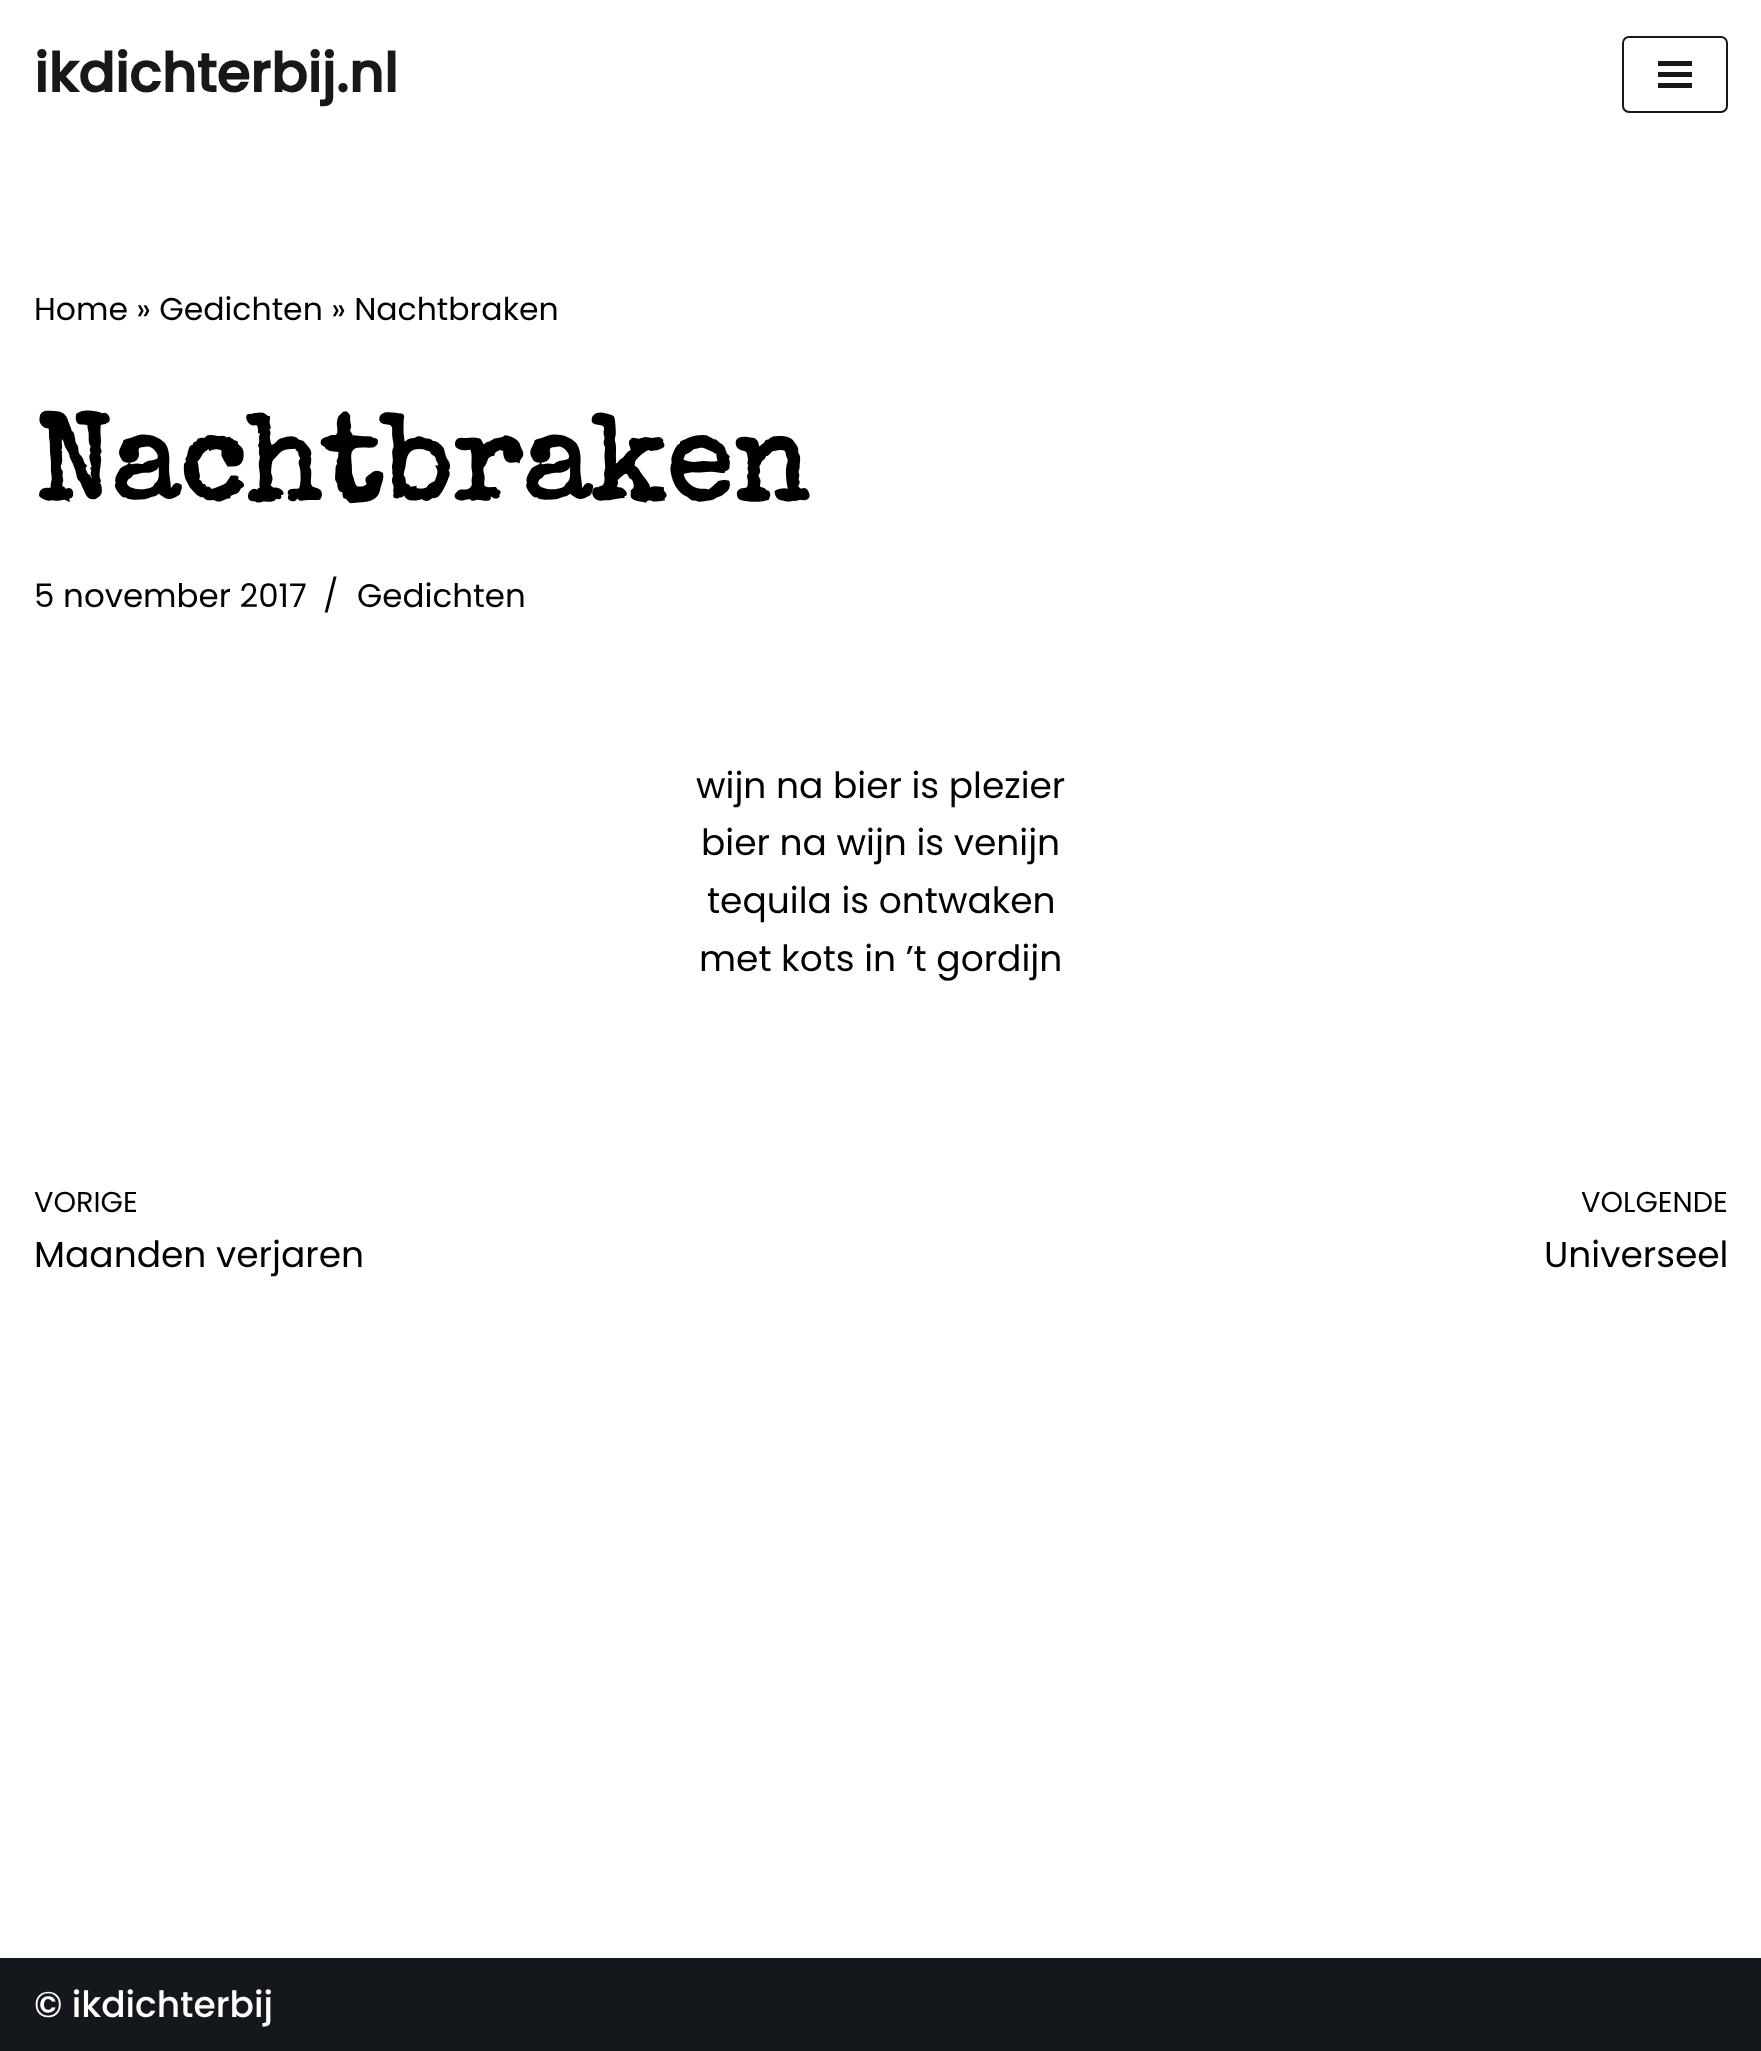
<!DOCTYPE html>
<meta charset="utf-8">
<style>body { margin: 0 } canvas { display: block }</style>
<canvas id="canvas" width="1761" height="2051"></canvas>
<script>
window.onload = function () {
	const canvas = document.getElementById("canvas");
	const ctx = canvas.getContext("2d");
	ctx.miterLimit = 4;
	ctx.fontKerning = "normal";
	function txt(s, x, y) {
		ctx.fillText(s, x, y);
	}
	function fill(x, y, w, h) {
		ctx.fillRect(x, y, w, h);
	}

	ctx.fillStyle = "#FFFFFF";
	fill(0, 0, 1761, 2051);
	ctx.beginPath();
	ctx.roundRect(1623, 37, 104, 75, 6);
	ctx.strokeStyle = "#181818";
	ctx.lineWidth = 2;
	ctx.stroke();
	ctx.fillStyle = "#181818";
	fill(1658, 61, 34, 5);
	fill(1658, 72, 34, 5);
	fill(1658, 83, 34, 5);
	ctx.fillStyle = "#14171C";
	fill(0, 1958, 1761, 93);
	ctx.font = "bold 54px Poppins";
	ctx.fillStyle = "#181818";
	txt("ikdichterbij.nl", 34, 92);
	ctx.font = "31.5px Poppins";
	ctx.fillStyle = "#000000";
	txt("Home » Gedichten » Nachtbraken", 34, 320);
	ctx.font = "bold 121.5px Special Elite";
	txt("Nachtbraken", 34, 499);
	ctx.font = "32.5px Poppins";
	txt("5 november 2017", 34, 607);
	txt("/", 323, 607);
	txt("Gedichten", 357, 607);
	ctx.font = "36px Poppins";
	txt("wijn na bier is plezier", 696, 798);
	txt("bier na wijn is venijn", 701, 855);
	txt("tequila is ontwaken", 707, 913);
	txt("met kots in ’t gordijn", 699, 971);
	ctx.font = "28.75px Poppins";
	txt("VORIGE", 34, 1212);
	ctx.font = "36px Poppins";
	txt("Maanden verjaren", 34, 1267);
	ctx.font = "28.75px Poppins";
	txt("VOLGENDE", 1581, 1212);
	ctx.font = "36px Poppins";
	txt("Universeel", 1544, 1267);
	ctx.font = "500 36px Poppins";
	ctx.fillStyle = "#FFFFFF";
	txt("© ikdichterbij", 34, 2017);
};
</script>
